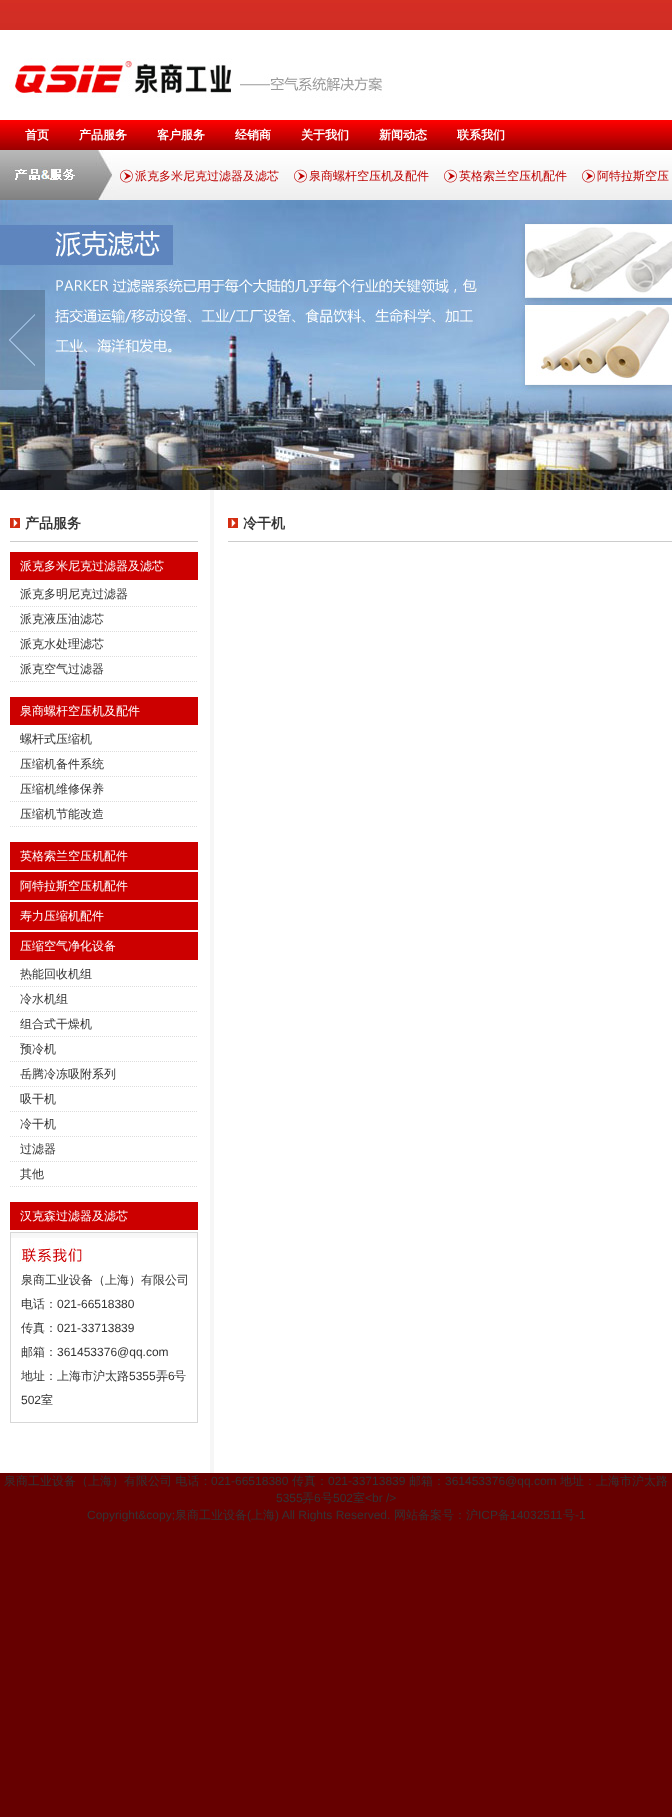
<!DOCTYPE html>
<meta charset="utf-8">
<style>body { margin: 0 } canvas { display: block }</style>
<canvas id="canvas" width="672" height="1817"></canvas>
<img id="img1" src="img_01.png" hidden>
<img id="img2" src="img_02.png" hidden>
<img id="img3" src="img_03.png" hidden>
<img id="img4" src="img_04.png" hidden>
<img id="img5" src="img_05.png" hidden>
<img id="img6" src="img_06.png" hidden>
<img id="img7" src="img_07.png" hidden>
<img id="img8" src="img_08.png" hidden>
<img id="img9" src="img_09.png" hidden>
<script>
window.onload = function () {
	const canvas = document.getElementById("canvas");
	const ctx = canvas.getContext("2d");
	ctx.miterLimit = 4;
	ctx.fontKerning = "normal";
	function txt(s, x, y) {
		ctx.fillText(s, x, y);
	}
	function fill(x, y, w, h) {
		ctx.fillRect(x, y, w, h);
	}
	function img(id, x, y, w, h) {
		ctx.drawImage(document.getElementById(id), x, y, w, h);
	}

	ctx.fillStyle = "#660000";
	fill(0, 0, 672, 1817);
	img("img1", 0, 0, 672, 30);
	ctx.fillStyle = "#FFFFFF";
	fill(0, 30, 672, 90);
	img("img2", 9, 58, 375, 40);
	img("img3", 0, 120, 672, 30);
	img("img4", 0, 150, 672, 50);
	img("img5", 120, 169, 13, 14);
	img("img5", 294, 169, 13, 14);
	img("img5", 444, 169, 13, 14);
	img("img5", 582, 169, 13, 14);
	img("img6", 0, 200, 672, 290);
	img("img7", 0, 290, 45, 100);
	ctx.fillStyle = "rgba(0, 0, 0, 0.5)";
	fill(0, 470, 672, 20);
	ctx.fillStyle = "#FFFFFF";
	fill(0, 490, 672, 983);
	ctx.fillStyle = "#F6F6F6";
	fill(210, 490, 4, 983);
	img("img8", 10, 518, 10, 10);
	ctx.fillStyle = "#CCCCCC";
	fill(10, 541, 188, 1);
	ctx.fillStyle = "#CC0000";
	fill(10, 552, 188, 28);
	ctx.beginPath();
	ctx.moveTo(10, 606.5);
	ctx.lineTo(198, 606.5);
	ctx.strokeStyle = "#DDDDDD";
	ctx.setLineDash([1, 1]);
	ctx.stroke();
	ctx.beginPath();
	ctx.moveTo(10, 631.5);
	ctx.lineTo(198, 631.5);
	ctx.stroke();
	ctx.beginPath();
	ctx.moveTo(10, 656.5);
	ctx.lineTo(198, 656.5);
	ctx.stroke();
	ctx.beginPath();
	ctx.moveTo(10, 681.5);
	ctx.lineTo(198, 681.5);
	ctx.stroke();
	fill(10, 697, 188, 28);
	ctx.beginPath();
	ctx.moveTo(10, 751.5);
	ctx.lineTo(198, 751.5);
	ctx.stroke();
	ctx.beginPath();
	ctx.moveTo(10, 776.5);
	ctx.lineTo(198, 776.5);
	ctx.stroke();
	ctx.beginPath();
	ctx.moveTo(10, 801.5);
	ctx.lineTo(198, 801.5);
	ctx.stroke();
	ctx.beginPath();
	ctx.moveTo(10, 826.5);
	ctx.lineTo(198, 826.5);
	ctx.stroke();
	fill(10, 842, 188, 28);
	fill(10, 872, 188, 28);
	fill(10, 902, 188, 28);
	fill(10, 932, 188, 28);
	ctx.beginPath();
	ctx.moveTo(10, 986.5);
	ctx.lineTo(198, 986.5);
	ctx.stroke();
	ctx.beginPath();
	ctx.moveTo(10, 1011.5);
	ctx.lineTo(198, 1011.5);
	ctx.stroke();
	ctx.beginPath();
	ctx.moveTo(10, 1036.5);
	ctx.lineTo(198, 1036.5);
	ctx.stroke();
	ctx.beginPath();
	ctx.moveTo(10, 1061.5);
	ctx.lineTo(198, 1061.5);
	ctx.stroke();
	ctx.beginPath();
	ctx.moveTo(10, 1086.5);
	ctx.lineTo(198, 1086.5);
	ctx.stroke();
	ctx.beginPath();
	ctx.moveTo(10, 1111.5);
	ctx.lineTo(198, 1111.5);
	ctx.stroke();
	ctx.beginPath();
	ctx.moveTo(10, 1136.5);
	ctx.lineTo(198, 1136.5);
	ctx.stroke();
	ctx.beginPath();
	ctx.moveTo(10, 1161.5);
	ctx.lineTo(198, 1161.5);
	ctx.stroke();
	ctx.beginPath();
	ctx.moveTo(10, 1186.5);
	ctx.lineTo(198, 1186.5);
	ctx.stroke();
	fill(10, 1202, 188, 28);
	img("img9", 11, 1233, 186, 31);
	ctx.strokeStyle = "#D7D7D7";
	ctx.setLineDash([]);
	ctx.strokeRect(10.5, 1232.5, 187, 190);
	img("img8", 228, 518, 10, 10);
	ctx.fillStyle = "#CCCCCC";
	fill(228, 541, 444, 1);
	ctx.font = "bold 12px WenQuanYi Zen Hei";
	ctx.fillStyle = "#FFFFFF";
	txt("首页", 25, 139);
	txt("产品服务", 79, 139);
	txt("客户服务", 157, 139);
	txt("经销商", 235, 139);
	txt("关于我们", 301, 139);
	txt("新闻动态", 379, 139);
	txt("联系我们", 457, 139);
	ctx.font = "500 12px WenQuanYi Zen Hei";
	ctx.fillStyle = "#BE0000";
	txt("派克多米尼克过滤器及滤芯", 135, 180);
	txt("泉商螺杆空压机及配件", 309, 180);
	txt("英格索兰空压机配件", 459, 180);
	txt("阿特拉斯空压", 597, 180);
	ctx.font = "bold 14px WenQuanYi Zen Hei";
	ctx.fillStyle = "#333333";
	txt("产品服务", 25, 528);
	ctx.font = "500 12px WenQuanYi Zen Hei";
	ctx.fillStyle = "#FFFFFF";
	txt("派克多米尼克过滤器及滤芯", 20, 570);
	ctx.fillStyle = "#333333";
	txt("派克多明尼克过滤器", 20, 598);
	txt("派克液压油滤芯", 20, 623);
	txt("派克水处理滤芯", 20, 648);
	txt("派克空气过滤器", 20, 673);
	ctx.fillStyle = "#FFFFFF";
	txt("泉商螺杆空压机及配件", 20, 715);
	ctx.fillStyle = "#333333";
	txt("螺杆式压缩机", 20, 743);
	txt("压缩机备件系统", 20, 768);
	txt("压缩机维修保养", 20, 793);
	txt("压缩机节能改造", 20, 818);
	ctx.fillStyle = "#FFFFFF";
	txt("英格索兰空压机配件", 20, 860);
	txt("阿特拉斯空压机配件", 20, 890);
	txt("寿力压缩机配件", 20, 920);
	txt("压缩空气净化设备", 20, 950);
	ctx.fillStyle = "#333333";
	txt("热能回收机组", 20, 978);
	txt("冷水机组", 20, 1003);
	txt("组合式干燥机", 20, 1028);
	txt("预冷机", 20, 1053);
	txt("岳腾冷冻吸附系列", 20, 1078);
	txt("吸干机", 20, 1103);
	txt("冷干机", 20, 1128);
	txt("过滤器", 20, 1153);
	txt("其他", 20, 1178);
	ctx.fillStyle = "#FFFFFF";
	txt("汉克森过滤器及滤芯", 20, 1220);
	ctx.fillStyle = "#333333";
	txt("泉商工业设备（上海）有限公司", 21, 1284);
	txt("电话：", 21, 1308);
	ctx.font = "12px Liberation Sans";
	txt("021-66518380", 57, 1308);
	ctx.font = "500 12px WenQuanYi Zen Hei";
	txt("传真：", 21, 1332);
	ctx.font = "12px Liberation Sans";
	txt("021-33713839", 57, 1332);
	ctx.font = "500 12px WenQuanYi Zen Hei";
	txt("邮箱：", 21, 1356);
	ctx.font = "12px Liberation Sans";
	txt("361453376@qq.com", 57, 1356);
	ctx.font = "500 12px WenQuanYi Zen Hei";
	txt("地址：上海市沪太路", 21, 1380);
	ctx.font = "12px Liberation Sans";
	txt("5355", 129, 1380);
	ctx.font = "500 12px WenQuanYi Zen Hei";
	txt("弄", 156, 1380);
	ctx.font = "12px Liberation Sans";
	txt("6", 168, 1380);
	ctx.font = "500 12px WenQuanYi Zen Hei";
	txt("号", 174, 1380);
	ctx.font = "12px Liberation Sans";
	txt("502", 21, 1404);
	ctx.font = "500 12px WenQuanYi Zen Hei";
	txt("室", 41, 1404);
	ctx.font = "bold 14px WenQuanYi Zen Hei";
	txt("冷干机", 243, 528);
	ctx.font = "500 12px WenQuanYi Zen Hei";
	txt("泉商工业设备（上海）有限公司 电话：", 4, 1485);
	ctx.font = "12px Liberation Sans";
	txt("021-66518380", 211, 1485);
	ctx.font = "500 12px WenQuanYi Zen Hei";
	txt("传真：", 292, 1485);
	ctx.font = "12px Liberation Sans";
	txt("021-33713839", 328, 1485);
	ctx.font = "500 12px WenQuanYi Zen Hei";
	txt("邮箱：", 409, 1485);
	ctx.font = "12px Liberation Sans";
	txt("361453376@qq.com", 445, 1485);
	ctx.font = "500 12px WenQuanYi Zen Hei";
	txt("地址：上海市沪太路", 560, 1485);
	ctx.font = "12px Liberation Sans";
	txt("5355", 276, 1502);
	ctx.font = "500 12px WenQuanYi Zen Hei";
	txt("弄", 302, 1502);
	ctx.font = "12px Liberation Sans";
	txt("6", 314, 1502);
	ctx.font = "500 12px WenQuanYi Zen Hei";
	txt("号", 321, 1502);
	ctx.font = "12px Liberation Sans";
	txt("502", 333, 1502);
	ctx.font = "500 12px WenQuanYi Zen Hei";
	txt("室", 353, 1502);
	ctx.font = "12px Liberation Sans";
	txt("<br />", 365, 1502);
	txt("Copyright&copy;", 87, 1519);
	ctx.font = "500 12px WenQuanYi Zen Hei";
	txt("泉商工业设备", 175, 1519);
	ctx.font = "12px Liberation Sans";
	txt("(", 247, 1519);
	ctx.font = "500 12px WenQuanYi Zen Hei";
	txt("上海", 251, 1519);
	ctx.font = "12px Liberation Sans";
	txt(") All Rights Reserved.", 275, 1519);
	ctx.font = "500 12px WenQuanYi Zen Hei";
	txt("网站备案号：沪", 394, 1519);
	ctx.font = "12px Liberation Sans";
	txt("ICP", 478, 1519);
	ctx.font = "500 12px WenQuanYi Zen Hei";
	txt("备", 498, 1519);
	ctx.font = "12px Liberation Sans";
	txt("14032511", 510, 1519);
	ctx.font = "500 12px WenQuanYi Zen Hei";
	txt("号", 563, 1519);
	ctx.font = "12px Liberation Sans";
	txt("-1", 575, 1519);
};
</script>
